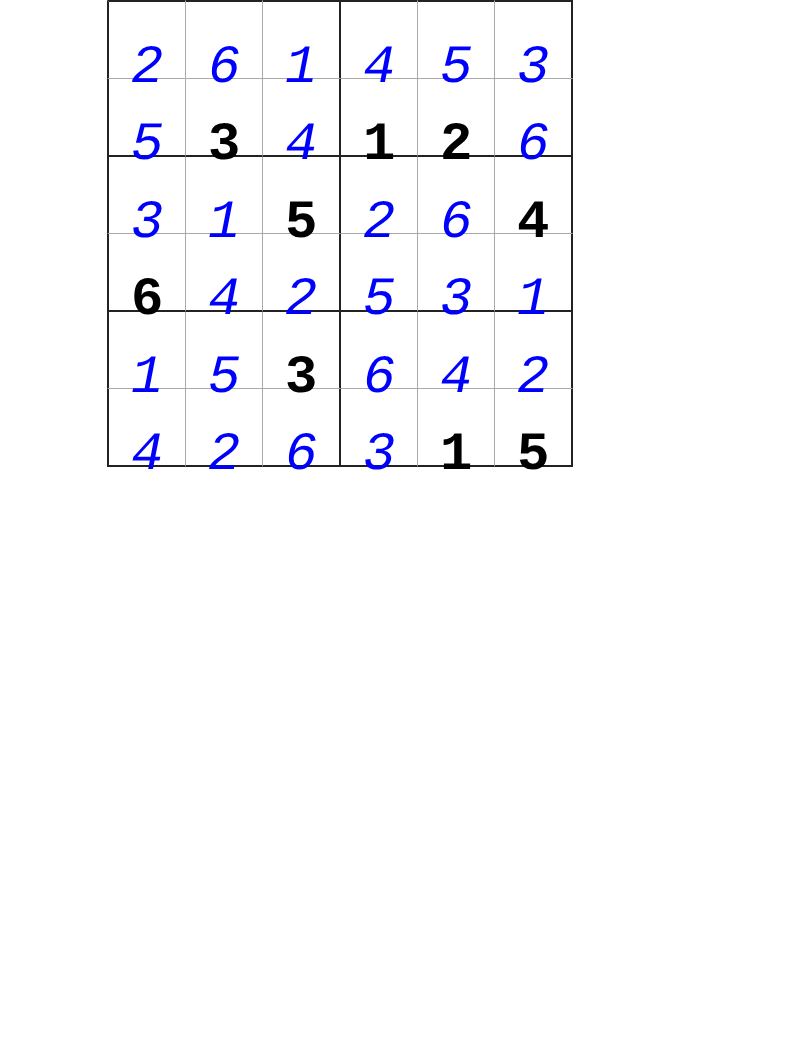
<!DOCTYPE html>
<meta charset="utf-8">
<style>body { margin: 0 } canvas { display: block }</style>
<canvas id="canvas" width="786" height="1053"></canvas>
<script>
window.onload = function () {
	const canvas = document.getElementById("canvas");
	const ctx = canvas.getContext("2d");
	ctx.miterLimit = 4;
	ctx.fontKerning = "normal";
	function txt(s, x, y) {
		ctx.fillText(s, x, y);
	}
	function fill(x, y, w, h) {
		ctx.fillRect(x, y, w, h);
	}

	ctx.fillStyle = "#FFFFFF";
	fill(0, 0, 786, 1053);
	ctx.fillStyle = "#222222";
	ctx.beginPath();
	ctx.moveTo(107, 0);
	ctx.lineTo(186, 0);
	ctx.lineTo(185, 2);
	ctx.lineTo(109, 2);
	ctx.closePath();
	ctx.fill();
	ctx.fillStyle = "#AAAAAA";
	ctx.beginPath();
	ctx.moveTo(186, 0);
	ctx.lineTo(186, 79);
	ctx.lineTo(185, 78);
	ctx.lineTo(185, 2);
	ctx.closePath();
	ctx.fill();
	ctx.beginPath();
	ctx.moveTo(186, 79);
	ctx.lineTo(107, 79);
	ctx.lineTo(109, 78);
	ctx.lineTo(185, 78);
	ctx.closePath();
	ctx.fill();
	ctx.fillStyle = "#222222";
	ctx.beginPath();
	ctx.moveTo(107, 79);
	ctx.lineTo(107, 0);
	ctx.lineTo(109, 2);
	ctx.lineTo(109, 78);
	ctx.closePath();
	ctx.fill();
	ctx.beginPath();
	ctx.moveTo(186, 0);
	ctx.lineTo(263, 0);
	ctx.lineTo(262, 2);
	ctx.lineTo(186, 2);
	ctx.closePath();
	ctx.fill();
	ctx.fillStyle = "#AAAAAA";
	ctx.beginPath();
	ctx.moveTo(263, 0);
	ctx.lineTo(263, 79);
	ctx.lineTo(262, 78);
	ctx.lineTo(262, 2);
	ctx.closePath();
	ctx.fill();
	fill(186, 78, 77, 1);
	ctx.fillStyle = "#222222";
	fill(263, 0, 78, 2);
	ctx.beginPath();
	ctx.moveTo(341, 0);
	ctx.lineTo(341, 79);
	ctx.lineTo(339, 78);
	ctx.lineTo(339, 2);
	ctx.closePath();
	ctx.fill();
	ctx.fillStyle = "#AAAAAA";
	ctx.beginPath();
	ctx.moveTo(341, 79);
	ctx.lineTo(263, 79);
	ctx.lineTo(263, 78);
	ctx.lineTo(339, 78);
	ctx.closePath();
	ctx.fill();
	ctx.fillStyle = "#222222";
	ctx.beginPath();
	ctx.moveTo(341, 0);
	ctx.lineTo(418, 0);
	ctx.lineTo(417, 2);
	ctx.lineTo(341, 2);
	ctx.closePath();
	ctx.fill();
	ctx.fillStyle = "#AAAAAA";
	ctx.beginPath();
	ctx.moveTo(418, 0);
	ctx.lineTo(418, 79);
	ctx.lineTo(417, 78);
	ctx.lineTo(417, 2);
	ctx.closePath();
	ctx.fill();
	fill(341, 78, 77, 1);
	ctx.fillStyle = "#222222";
	ctx.beginPath();
	ctx.moveTo(418, 0);
	ctx.lineTo(495, 0);
	ctx.lineTo(494, 2);
	ctx.lineTo(418, 2);
	ctx.closePath();
	ctx.fill();
	ctx.fillStyle = "#AAAAAA";
	ctx.beginPath();
	ctx.moveTo(495, 0);
	ctx.lineTo(495, 79);
	ctx.lineTo(494, 78);
	ctx.lineTo(494, 2);
	ctx.closePath();
	ctx.fill();
	fill(418, 78, 77, 1);
	ctx.fillStyle = "#222222";
	fill(495, 0, 78, 2);
	ctx.beginPath();
	ctx.moveTo(573, 0);
	ctx.lineTo(573, 79);
	ctx.lineTo(571, 78);
	ctx.lineTo(571, 2);
	ctx.closePath();
	ctx.fill();
	ctx.fillStyle = "#AAAAAA";
	ctx.beginPath();
	ctx.moveTo(573, 79);
	ctx.lineTo(495, 79);
	ctx.lineTo(495, 78);
	ctx.lineTo(571, 78);
	ctx.closePath();
	ctx.fill();
	ctx.beginPath();
	ctx.moveTo(186, 79);
	ctx.lineTo(186, 157);
	ctx.lineTo(185, 155);
	ctx.lineTo(185, 79);
	ctx.closePath();
	ctx.fill();
	ctx.fillStyle = "#222222";
	ctx.beginPath();
	ctx.moveTo(186, 157);
	ctx.lineTo(107, 157);
	ctx.lineTo(109, 155);
	ctx.lineTo(185, 155);
	ctx.closePath();
	ctx.fill();
	fill(107, 79, 2, 78);
	ctx.fillStyle = "#AAAAAA";
	ctx.beginPath();
	ctx.moveTo(263, 79);
	ctx.lineTo(263, 157);
	ctx.lineTo(262, 155);
	ctx.lineTo(262, 79);
	ctx.closePath();
	ctx.fill();
	ctx.fillStyle = "#222222";
	ctx.beginPath();
	ctx.moveTo(263, 157);
	ctx.lineTo(186, 157);
	ctx.lineTo(186, 155);
	ctx.lineTo(262, 155);
	ctx.closePath();
	ctx.fill();
	fill(339, 79, 2, 78);
	fill(263, 155, 78, 2);
	ctx.fillStyle = "#AAAAAA";
	ctx.beginPath();
	ctx.moveTo(418, 79);
	ctx.lineTo(418, 157);
	ctx.lineTo(417, 155);
	ctx.lineTo(417, 79);
	ctx.closePath();
	ctx.fill();
	ctx.fillStyle = "#222222";
	ctx.beginPath();
	ctx.moveTo(418, 157);
	ctx.lineTo(341, 157);
	ctx.lineTo(341, 155);
	ctx.lineTo(417, 155);
	ctx.closePath();
	ctx.fill();
	ctx.fillStyle = "#AAAAAA";
	ctx.beginPath();
	ctx.moveTo(495, 79);
	ctx.lineTo(495, 157);
	ctx.lineTo(494, 155);
	ctx.lineTo(494, 79);
	ctx.closePath();
	ctx.fill();
	ctx.fillStyle = "#222222";
	ctx.beginPath();
	ctx.moveTo(495, 157);
	ctx.lineTo(418, 157);
	ctx.lineTo(418, 155);
	ctx.lineTo(494, 155);
	ctx.closePath();
	ctx.fill();
	fill(571, 79, 2, 78);
	fill(495, 155, 78, 2);
	ctx.fillStyle = "#AAAAAA";
	fill(185, 157, 1, 77);
	ctx.beginPath();
	ctx.moveTo(186, 234);
	ctx.lineTo(107, 234);
	ctx.lineTo(109, 233);
	ctx.lineTo(185, 233);
	ctx.closePath();
	ctx.fill();
	ctx.fillStyle = "#222222";
	ctx.beginPath();
	ctx.moveTo(107, 234);
	ctx.lineTo(107, 157);
	ctx.lineTo(109, 157);
	ctx.lineTo(109, 233);
	ctx.closePath();
	ctx.fill();
	ctx.fillStyle = "#AAAAAA";
	fill(262, 157, 1, 77);
	fill(186, 233, 77, 1);
	ctx.fillStyle = "#222222";
	ctx.beginPath();
	ctx.moveTo(341, 157);
	ctx.lineTo(341, 234);
	ctx.lineTo(339, 233);
	ctx.lineTo(339, 157);
	ctx.closePath();
	ctx.fill();
	ctx.fillStyle = "#AAAAAA";
	ctx.beginPath();
	ctx.moveTo(341, 234);
	ctx.lineTo(263, 234);
	ctx.lineTo(263, 233);
	ctx.lineTo(339, 233);
	ctx.closePath();
	ctx.fill();
	fill(417, 157, 1, 77);
	fill(341, 233, 77, 1);
	fill(494, 157, 1, 77);
	fill(418, 233, 77, 1);
	ctx.fillStyle = "#222222";
	ctx.beginPath();
	ctx.moveTo(573, 157);
	ctx.lineTo(573, 234);
	ctx.lineTo(571, 233);
	ctx.lineTo(571, 157);
	ctx.closePath();
	ctx.fill();
	ctx.fillStyle = "#AAAAAA";
	ctx.beginPath();
	ctx.moveTo(573, 234);
	ctx.lineTo(495, 234);
	ctx.lineTo(495, 233);
	ctx.lineTo(571, 233);
	ctx.closePath();
	ctx.fill();
	ctx.beginPath();
	ctx.moveTo(186, 234);
	ctx.lineTo(186, 312);
	ctx.lineTo(185, 310);
	ctx.lineTo(185, 234);
	ctx.closePath();
	ctx.fill();
	ctx.fillStyle = "#222222";
	ctx.beginPath();
	ctx.moveTo(186, 312);
	ctx.lineTo(107, 312);
	ctx.lineTo(109, 310);
	ctx.lineTo(185, 310);
	ctx.closePath();
	ctx.fill();
	fill(107, 234, 2, 78);
	ctx.fillStyle = "#AAAAAA";
	ctx.beginPath();
	ctx.moveTo(263, 234);
	ctx.lineTo(263, 312);
	ctx.lineTo(262, 310);
	ctx.lineTo(262, 234);
	ctx.closePath();
	ctx.fill();
	ctx.fillStyle = "#222222";
	ctx.beginPath();
	ctx.moveTo(263, 312);
	ctx.lineTo(186, 312);
	ctx.lineTo(186, 310);
	ctx.lineTo(262, 310);
	ctx.closePath();
	ctx.fill();
	fill(339, 234, 2, 78);
	fill(263, 310, 78, 2);
	ctx.fillStyle = "#AAAAAA";
	ctx.beginPath();
	ctx.moveTo(418, 234);
	ctx.lineTo(418, 312);
	ctx.lineTo(417, 310);
	ctx.lineTo(417, 234);
	ctx.closePath();
	ctx.fill();
	ctx.fillStyle = "#222222";
	ctx.beginPath();
	ctx.moveTo(418, 312);
	ctx.lineTo(341, 312);
	ctx.lineTo(341, 310);
	ctx.lineTo(417, 310);
	ctx.closePath();
	ctx.fill();
	ctx.fillStyle = "#AAAAAA";
	ctx.beginPath();
	ctx.moveTo(495, 234);
	ctx.lineTo(495, 312);
	ctx.lineTo(494, 310);
	ctx.lineTo(494, 234);
	ctx.closePath();
	ctx.fill();
	ctx.fillStyle = "#222222";
	ctx.beginPath();
	ctx.moveTo(495, 312);
	ctx.lineTo(418, 312);
	ctx.lineTo(418, 310);
	ctx.lineTo(494, 310);
	ctx.closePath();
	ctx.fill();
	fill(571, 234, 2, 78);
	fill(495, 310, 78, 2);
	ctx.fillStyle = "#AAAAAA";
	fill(185, 312, 1, 77);
	ctx.beginPath();
	ctx.moveTo(186, 389);
	ctx.lineTo(107, 389);
	ctx.lineTo(109, 388);
	ctx.lineTo(185, 388);
	ctx.closePath();
	ctx.fill();
	ctx.fillStyle = "#222222";
	ctx.beginPath();
	ctx.moveTo(107, 389);
	ctx.lineTo(107, 312);
	ctx.lineTo(109, 312);
	ctx.lineTo(109, 388);
	ctx.closePath();
	ctx.fill();
	ctx.fillStyle = "#AAAAAA";
	fill(262, 312, 1, 77);
	fill(186, 388, 77, 1);
	ctx.fillStyle = "#222222";
	ctx.beginPath();
	ctx.moveTo(341, 312);
	ctx.lineTo(341, 389);
	ctx.lineTo(339, 388);
	ctx.lineTo(339, 312);
	ctx.closePath();
	ctx.fill();
	ctx.fillStyle = "#AAAAAA";
	ctx.beginPath();
	ctx.moveTo(341, 389);
	ctx.lineTo(263, 389);
	ctx.lineTo(263, 388);
	ctx.lineTo(339, 388);
	ctx.closePath();
	ctx.fill();
	fill(417, 312, 1, 77);
	fill(341, 388, 77, 1);
	fill(494, 312, 1, 77);
	fill(418, 388, 77, 1);
	ctx.fillStyle = "#222222";
	ctx.beginPath();
	ctx.moveTo(573, 312);
	ctx.lineTo(573, 389);
	ctx.lineTo(571, 388);
	ctx.lineTo(571, 312);
	ctx.closePath();
	ctx.fill();
	ctx.fillStyle = "#AAAAAA";
	ctx.beginPath();
	ctx.moveTo(573, 389);
	ctx.lineTo(495, 389);
	ctx.lineTo(495, 388);
	ctx.lineTo(571, 388);
	ctx.closePath();
	ctx.fill();
	ctx.beginPath();
	ctx.moveTo(186, 389);
	ctx.lineTo(186, 467);
	ctx.lineTo(185, 465);
	ctx.lineTo(185, 389);
	ctx.closePath();
	ctx.fill();
	ctx.fillStyle = "#222222";
	ctx.beginPath();
	ctx.moveTo(186, 467);
	ctx.lineTo(107, 467);
	ctx.lineTo(109, 465);
	ctx.lineTo(185, 465);
	ctx.closePath();
	ctx.fill();
	fill(107, 389, 2, 78);
	ctx.fillStyle = "#AAAAAA";
	ctx.beginPath();
	ctx.moveTo(263, 389);
	ctx.lineTo(263, 467);
	ctx.lineTo(262, 465);
	ctx.lineTo(262, 389);
	ctx.closePath();
	ctx.fill();
	ctx.fillStyle = "#222222";
	ctx.beginPath();
	ctx.moveTo(263, 467);
	ctx.lineTo(186, 467);
	ctx.lineTo(186, 465);
	ctx.lineTo(262, 465);
	ctx.closePath();
	ctx.fill();
	fill(339, 389, 2, 78);
	fill(263, 465, 78, 2);
	ctx.fillStyle = "#AAAAAA";
	ctx.beginPath();
	ctx.moveTo(418, 389);
	ctx.lineTo(418, 467);
	ctx.lineTo(417, 465);
	ctx.lineTo(417, 389);
	ctx.closePath();
	ctx.fill();
	ctx.fillStyle = "#222222";
	ctx.beginPath();
	ctx.moveTo(418, 467);
	ctx.lineTo(341, 467);
	ctx.lineTo(341, 465);
	ctx.lineTo(417, 465);
	ctx.closePath();
	ctx.fill();
	ctx.fillStyle = "#AAAAAA";
	ctx.beginPath();
	ctx.moveTo(495, 389);
	ctx.lineTo(495, 467);
	ctx.lineTo(494, 465);
	ctx.lineTo(494, 389);
	ctx.closePath();
	ctx.fill();
	ctx.fillStyle = "#222222";
	ctx.beginPath();
	ctx.moveTo(495, 467);
	ctx.lineTo(418, 467);
	ctx.lineTo(418, 465);
	ctx.lineTo(494, 465);
	ctx.closePath();
	ctx.fill();
	fill(571, 389, 2, 78);
	fill(495, 465, 78, 2);
	ctx.font = "italic 54px Liberation Mono";
	ctx.fillStyle = "#0000FF";
	txt("2", 131, 82);
	txt("6", 208, 82);
	txt("1", 285, 82);
	txt("4", 363, 82);
	txt("5", 440, 82);
	txt("3", 517, 82);
	txt("5", 131, 159);
	ctx.font = "bold 54px Liberation Mono";
	ctx.fillStyle = "#000000";
	txt("3", 208, 159);
	ctx.font = "italic 54px Liberation Mono";
	ctx.fillStyle = "#0000FF";
	txt("4", 285, 159);
	ctx.font = "bold 54px Liberation Mono";
	ctx.fillStyle = "#000000";
	txt("1", 363, 159);
	txt("2", 440, 159);
	ctx.font = "italic 54px Liberation Mono";
	ctx.fillStyle = "#0000FF";
	txt("6", 517, 159);
	txt("3", 131, 237);
	txt("1", 208, 237);
	ctx.font = "bold 54px Liberation Mono";
	ctx.fillStyle = "#000000";
	txt("5", 285, 237);
	ctx.font = "italic 54px Liberation Mono";
	ctx.fillStyle = "#0000FF";
	txt("2", 363, 237);
	txt("6", 440, 237);
	ctx.font = "bold 54px Liberation Mono";
	ctx.fillStyle = "#000000";
	txt("4", 517, 237);
	txt("6", 131, 314);
	ctx.font = "italic 54px Liberation Mono";
	ctx.fillStyle = "#0000FF";
	txt("4", 208, 314);
	txt("2", 285, 314);
	txt("5", 363, 314);
	txt("3", 440, 314);
	txt("1", 517, 314);
	txt("1", 131, 392);
	txt("5", 208, 392);
	ctx.font = "bold 54px Liberation Mono";
	ctx.fillStyle = "#000000";
	txt("3", 285, 392);
	ctx.font = "italic 54px Liberation Mono";
	ctx.fillStyle = "#0000FF";
	txt("6", 363, 392);
	txt("4", 440, 392);
	txt("2", 517, 392);
	txt("4", 131, 469);
	txt("2", 208, 469);
	txt("6", 285, 469);
	txt("3", 363, 469);
	ctx.font = "bold 54px Liberation Mono";
	ctx.fillStyle = "#000000";
	txt("1", 440, 469);
	txt("5", 517, 469);
};
</script>
